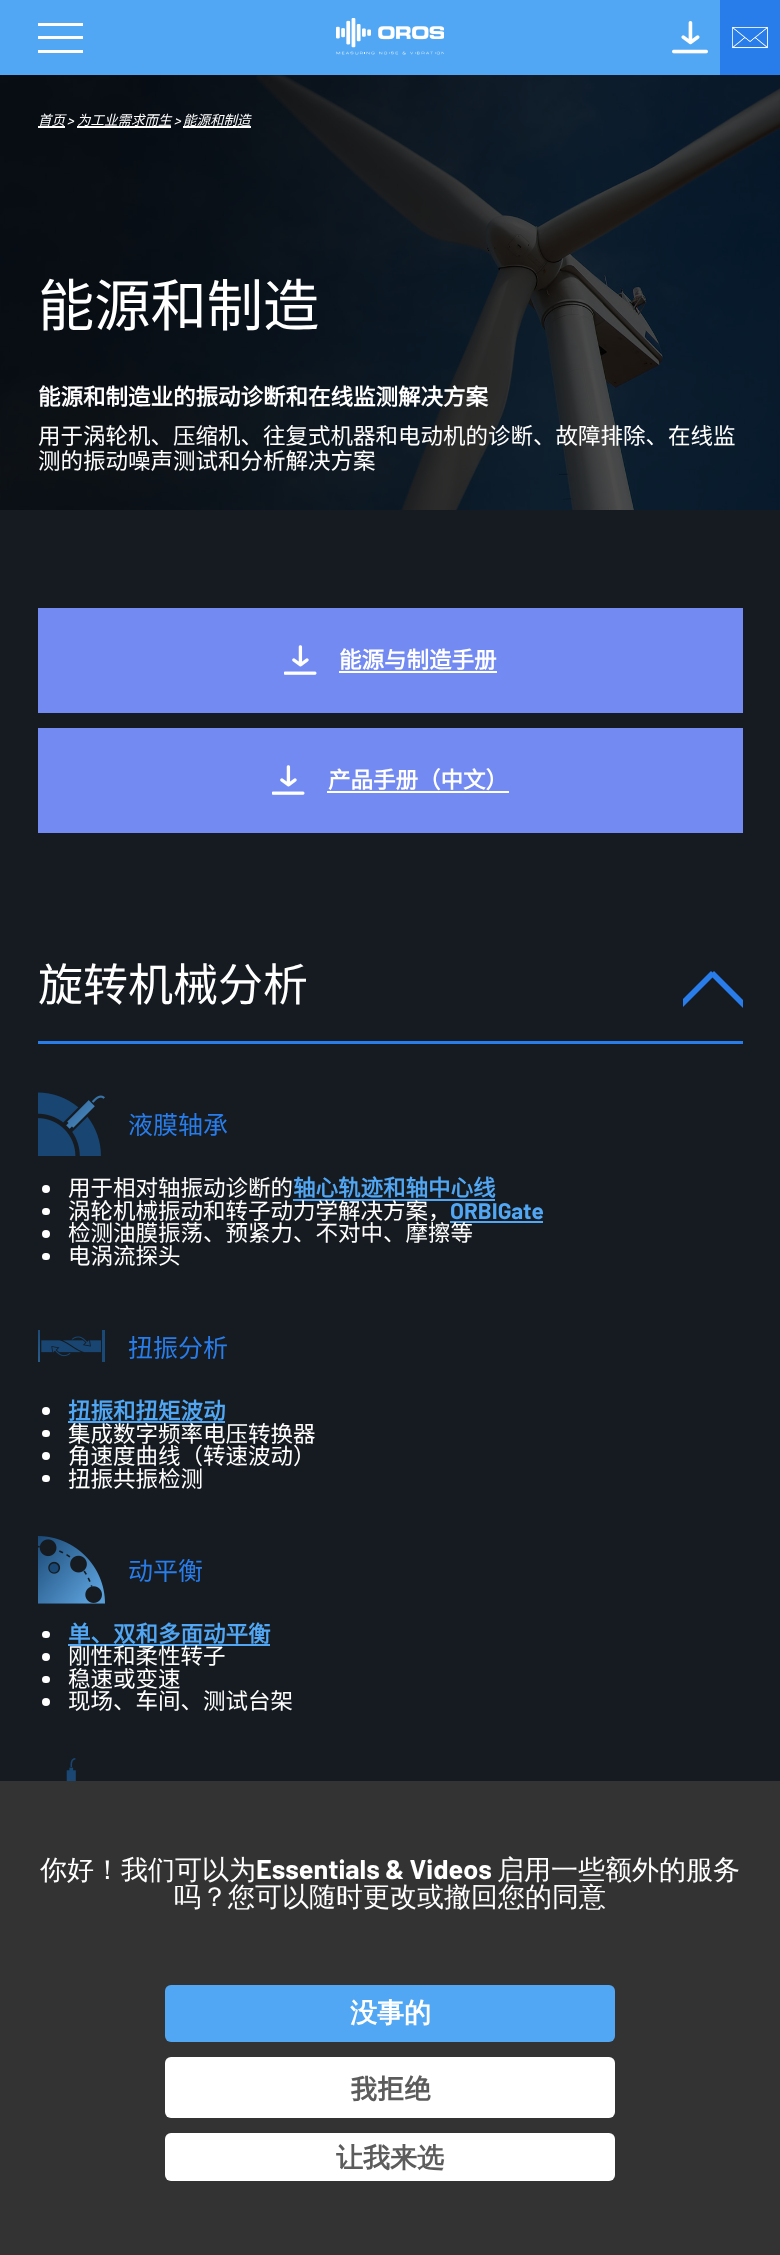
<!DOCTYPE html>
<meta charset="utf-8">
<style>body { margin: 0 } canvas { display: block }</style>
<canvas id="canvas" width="780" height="2255"></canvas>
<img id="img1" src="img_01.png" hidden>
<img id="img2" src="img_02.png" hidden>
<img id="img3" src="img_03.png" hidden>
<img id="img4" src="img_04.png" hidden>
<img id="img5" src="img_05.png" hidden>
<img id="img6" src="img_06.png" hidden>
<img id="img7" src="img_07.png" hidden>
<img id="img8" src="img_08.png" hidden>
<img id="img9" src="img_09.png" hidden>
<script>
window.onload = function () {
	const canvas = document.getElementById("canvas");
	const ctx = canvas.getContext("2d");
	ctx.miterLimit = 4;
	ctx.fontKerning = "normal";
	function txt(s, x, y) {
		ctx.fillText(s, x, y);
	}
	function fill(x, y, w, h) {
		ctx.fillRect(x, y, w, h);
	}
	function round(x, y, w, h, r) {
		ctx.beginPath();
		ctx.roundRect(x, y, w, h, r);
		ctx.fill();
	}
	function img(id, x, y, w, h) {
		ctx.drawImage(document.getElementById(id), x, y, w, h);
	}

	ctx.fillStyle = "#151B20";
	fill(0, 0, 780, 2255);
	ctx.fillStyle = "#51A7F3";
	fill(0, 0, 720, 75);
	ctx.fillStyle = "#FFFFFF";
	fill(38, 23, 45, 3);
	fill(38, 36, 45, 3);
	fill(38, 50, 45, 3);
	img("img1", 336, 18, 108, 37);
	img("img2", 672, 21, 36, 33);
	ctx.fillStyle = "#297DEB";
	fill(720, 0, 60, 75);
	img("img3", 732, 27, 36, 22);
	img("img4", 0, 75, 780, 435);
	ctx.fillStyle = "#FFFFFF";
	fill(38, 126, 27, 2);
	fill(77, 126, 94, 2);
	fill(183, 126, 68, 2);
	ctx.fillStyle = "#738AF2";
	fill(38, 608, 705, 105);
	img("img5", 284, 645, 33, 30);
	ctx.fillStyle = "#FFFFFF";
	fill(339, 671, 158, 2);
	ctx.fillStyle = "#738AF2";
	fill(38, 728, 705, 105);
	img("img5", 272, 765, 33, 30);
	ctx.fillStyle = "#FFFFFF";
	fill(327, 791, 182, 2);
	ctx.save();
	ctx.beginPath();
	ctx.rect(683, 960, 60, 54);
	ctx.clip();
	ctx.fillStyle = "#297DEB";
	ctx.beginPath();
	ctx.moveTo(669, 1013);
	ctx.lineTo(711, 971);
	ctx.lineTo(715, 975);
	ctx.lineTo(673, 1017);
	ctx.closePath();
	ctx.fill();
	ctx.beginPath();
	ctx.moveTo(714, 971);
	ctx.lineTo(756, 1013);
	ctx.lineTo(752, 1017);
	ctx.lineTo(710, 975);
	ctx.closePath();
	ctx.fill();
	ctx.restore();
	ctx.fillStyle = "#297DEB";
	fill(38, 1041, 705, 3);
	img("img6", 38, 1092, 67, 64);
	ctx.fillStyle = "#FFFFFF";
	ctx.beginPath();
	ctx.arc(46, 1189, 4, 0, Math.PI * 2);
	ctx.fill();
	ctx.fillStyle = "#51A7F3";
	fill(293, 1199, 202, 2);
	ctx.fillStyle = "#FFFFFF";
	round(42, 1208, 8, 7, 3.5);
	ctx.fillStyle = "#51A7F3";
	fill(450, 1221, 93, 2);
	ctx.fillStyle = "#FFFFFF";
	ctx.beginPath();
	ctx.arc(46, 1234, 4, 0, Math.PI * 2);
	ctx.fill();
	round(42, 1253, 8, 7, 3.5);
	img("img7", 38, 1330, 67, 32);
	ctx.beginPath();
	ctx.arc(46, 1411, 4, 0, Math.PI * 2);
	ctx.fill();
	ctx.fillStyle = "#51A7F3";
	fill(68, 1421, 157, 2);
	ctx.fillStyle = "#FFFFFF";
	round(42, 1430, 8, 7, 3.5);
	ctx.beginPath();
	ctx.arc(46, 1456, 4, 0, Math.PI * 2);
	ctx.fill();
	round(42, 1475, 8, 7, 3.5);
	img("img8", 38, 1536, 67, 68);
	round(42, 1631, 8, 7, 3.5);
	ctx.fillStyle = "#51A7F3";
	fill(68, 1644, 202, 2);
	ctx.fillStyle = "#FFFFFF";
	ctx.beginPath();
	ctx.arc(46, 1657, 4, 0, Math.PI * 2);
	ctx.fill();
	round(42, 1676, 8, 7, 3.5);
	ctx.beginPath();
	ctx.arc(46, 1702, 4, 0, Math.PI * 2);
	ctx.fill();
	img("img9", 66, 1758, 10, 23);
	ctx.fillStyle = "#333333";
	fill(0, 1781, 780, 474);
	ctx.fillStyle = "#51A7F3";
	round(165, 1985, 450, 57, 6);
	ctx.fillStyle = "#FFFFFF";
	round(165, 2057, 450, 61, 6);
	round(165, 2133, 450, 48, 6);
	ctx.font = "italic 13.5px Noto Sans CJK SC";
	txt("首页", 38, 125);
	ctx.font = "italic 500 13.5px Barlow";
	txt(">", 67, 125);
	ctx.font = "italic 13.5px Noto Sans CJK SC";
	txt("为工业需求而生", 77, 125);
	ctx.font = "italic 500 13.5px Barlow";
	txt(">", 174, 125);
	ctx.font = "italic 13.5px Noto Sans CJK SC";
	txt("能源和制造", 183, 125);
	ctx.font = "56.25px Noto Sans CJK SC";
	txt("能源和制造", 38, 326);
	ctx.font = "bold 22.5px Noto Sans CJK SC";
	txt("能源和制造业的振动诊断和在线监测解决方案", 38, 405);
	ctx.font = "22.5px Noto Sans CJK SC";
	txt("用于涡轮机、压缩机、往复式机器和电动机的诊断、故障排除、在线监", 38, 444);
	txt("测的振动噪声测试和分析解决方案", 38, 469);
	ctx.font = "bold 22.5px Noto Sans CJK SC";
	txt("能源与制造手册", 339, 668);
	txt("产品手册（中文）", 328, 788);
	ctx.font = "45px Noto Sans CJK SC";
	txt("旋转机械分析", 38, 1001);
	ctx.font = "25px Noto Sans CJK SC";
	ctx.fillStyle = "#297DEB";
	txt("液膜轴承", 128, 1134);
	ctx.font = "22.5px Noto Sans CJK SC";
	ctx.fillStyle = "#FFFFFF";
	txt("用于相对轴振动诊断的", 68, 1196);
	ctx.font = "bold 22.5px Noto Sans CJK SC";
	ctx.fillStyle = "#51A7F3";
	txt("轴心轨迹和轴中心线", 293, 1196);
	ctx.font = "22.5px Noto Sans CJK SC";
	ctx.fillStyle = "#FFFFFF";
	txt("涡轮机械振动和转子动力学解决方案，", 68, 1219);
	ctx.font = "bold 22.5px Barlow";
	ctx.fillStyle = "#51A7F3";
	txt("ORBIGate", 450, 1219);
	ctx.font = "22.5px Noto Sans CJK SC";
	ctx.fillStyle = "#FFFFFF";
	txt("检测油膜振荡、预紧力、不对中、摩擦等", 68, 1241);
	txt("电涡流探头", 68, 1264);
	ctx.font = "25px Noto Sans CJK SC";
	ctx.fillStyle = "#297DEB";
	txt("扭振分析", 128, 1357);
	ctx.font = "bold 22.5px Noto Sans CJK SC";
	ctx.fillStyle = "#51A7F3";
	txt("扭振和扭矩波动", 68, 1419);
	ctx.font = "22.5px Noto Sans CJK SC";
	ctx.fillStyle = "#FFFFFF";
	txt("集成数字频率电压转换器", 68, 1442);
	txt("角速度曲线（转速波动）", 68, 1464);
	txt("扭振共振检测", 68, 1487);
	ctx.font = "25px Noto Sans CJK SC";
	ctx.fillStyle = "#297DEB";
	txt("动平衡", 128, 1580);
	ctx.font = "bold 22.5px Noto Sans CJK SC";
	ctx.fillStyle = "#51A7F3";
	txt("单、双和多面动平衡", 68, 1642);
	ctx.font = "22.5px Noto Sans CJK SC";
	ctx.fillStyle = "#FFFFFF";
	txt("刚性和柔性转子", 68, 1664);
	txt("稳速或变速", 68, 1687);
	txt("现场、车间、测试台架", 68, 1709);
	ctx.font = "500 27px WenQuanYi Zen Hei";
	txt("你好！我们可以为", 40, 1879);
	ctx.font = "bold 27px Barlow";
	txt("Essentials & Videos", 256, 1879);
	ctx.font = "500 27px WenQuanYi Zen Hei";
	txt("启用一些额外的服务", 497, 1879);
	txt("吗？您可以随时更改或撤回您的同意", 174, 1906);
	ctx.font = "bold 27px WenQuanYi Zen Hei";
	txt("没事的", 350, 2022);
	ctx.font = "bold 27px Noto Sans CJK SC";
	ctx.fillStyle = "#5C5C5C";
	txt("我拒绝", 350, 2099);
	ctx.font = "bold 27px WenQuanYi Zen Hei";
	txt("让我来选", 336, 2167);
};
</script>
